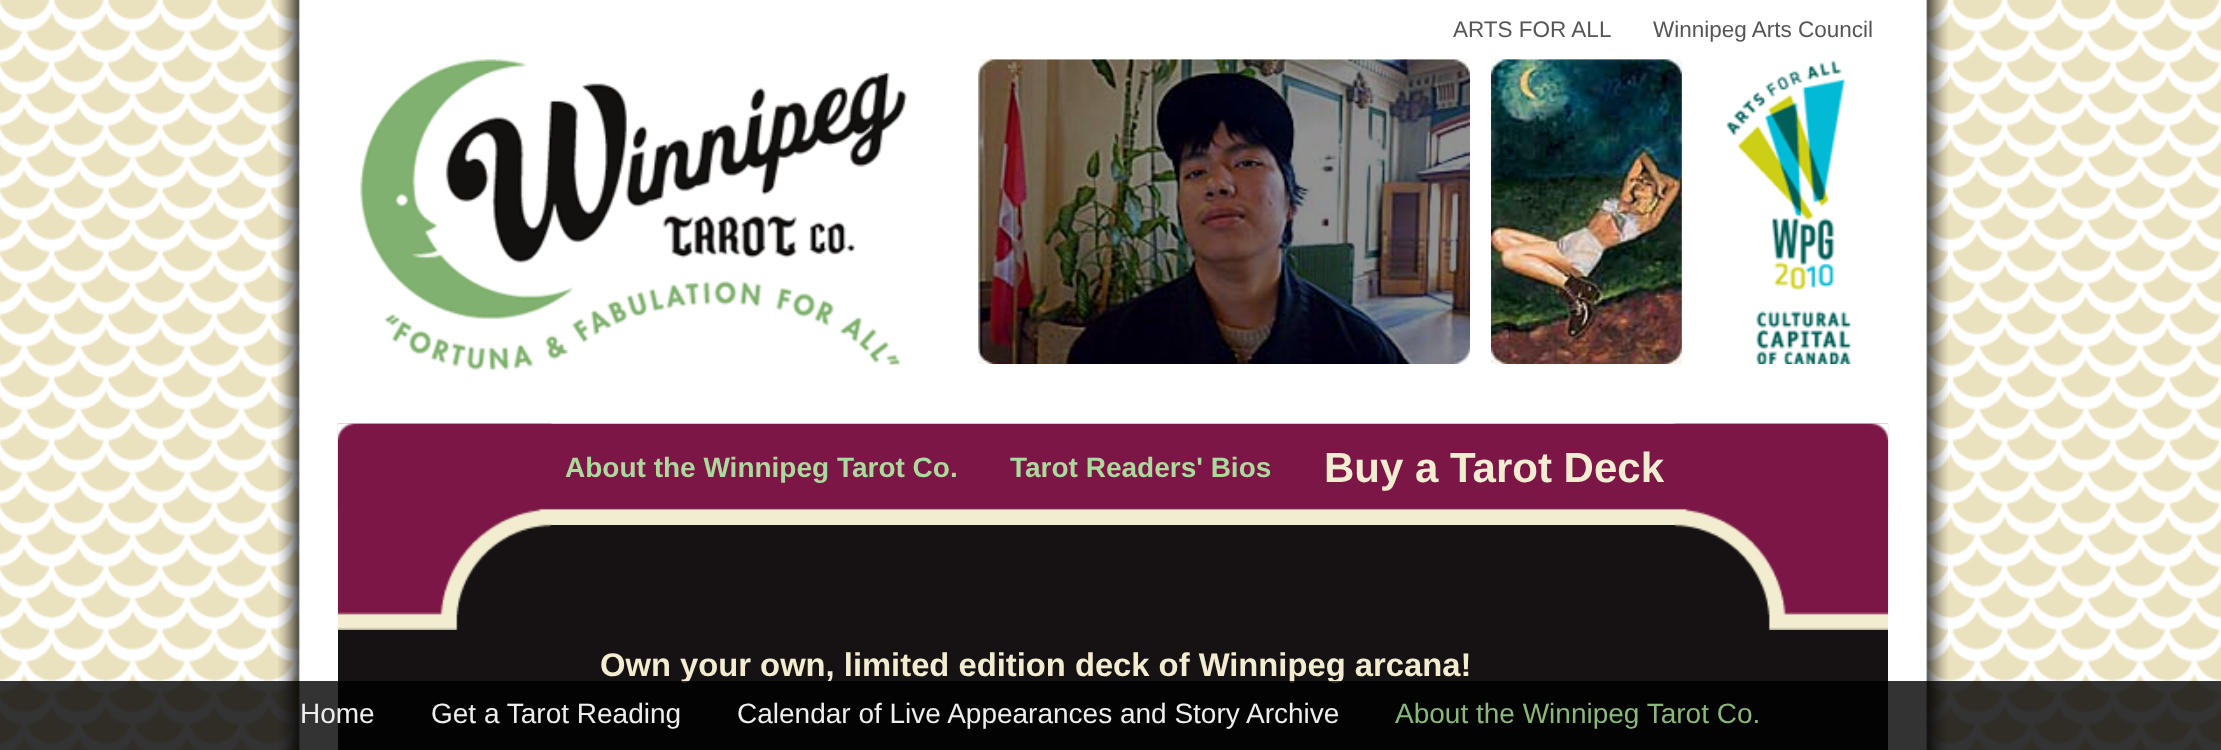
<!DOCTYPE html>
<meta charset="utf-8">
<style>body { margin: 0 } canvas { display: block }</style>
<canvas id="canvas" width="2221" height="750"></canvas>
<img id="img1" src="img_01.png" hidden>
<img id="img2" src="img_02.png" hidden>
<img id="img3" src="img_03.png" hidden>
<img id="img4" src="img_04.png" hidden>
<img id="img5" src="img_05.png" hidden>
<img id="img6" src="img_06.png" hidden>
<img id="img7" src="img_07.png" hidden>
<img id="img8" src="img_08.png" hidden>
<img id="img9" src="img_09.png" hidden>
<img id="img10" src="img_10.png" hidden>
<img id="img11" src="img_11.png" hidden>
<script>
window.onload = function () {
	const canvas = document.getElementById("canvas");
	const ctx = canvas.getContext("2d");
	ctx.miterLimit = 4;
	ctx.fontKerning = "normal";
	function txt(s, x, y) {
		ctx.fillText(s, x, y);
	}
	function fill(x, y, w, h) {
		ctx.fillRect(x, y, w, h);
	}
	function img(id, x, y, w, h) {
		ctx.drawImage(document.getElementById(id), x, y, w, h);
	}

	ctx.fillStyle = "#FFFFFF";
	fill(0, 0, 2221, 750);
	img("img1", 0, 0, 2221, 750);
	img("img2", 278, 0, 1670, 750);
	img("img3", 360, 59, 547, 312);
	img("img4", 978, 59, 492, 305);
	img("img5", 978, 59, 492, 305);
	img("img6", 1491, 59, 191, 305);
	img("img7", 1501, 59, 181, 295);
	img("img8", 1726, 60, 126, 304);
	ctx.fillStyle = "#161113";
	fill(338, 525, 1550, 225);
	img("img9", 337, 423, 1552, 102);
	img("img10", 337, 423, 215, 207);
	img("img11", 1674, 423, 215, 207);
	ctx.font = "22.5px Liberation Sans";
	ctx.fillStyle = "#555555";
	txt("ARTS FOR ALL", 1453, 37);
	txt("Winnipeg Arts Council", 1653, 37);
	ctx.font = "bold 28px Liberation Sans";
	ctx.fillStyle = "#ACD99C";
	txt("About the Winnipeg Tarot Co.", 565, 477);
	txt("Tarot Readers' Bios", 1010, 477);
	ctx.font = "bold 42px Liberation Sans";
	ctx.fillStyle = "#F2ECD0";
	txt("Buy a Tarot Deck", 1324, 482);
	ctx.font = "bold 32.75px Liberation Sans";
	txt("Own your own, limited edition deck of Winnipeg arcana!", 600, 676);
	ctx.fillStyle = "rgba(0, 0, 0, 0.8)";
	fill(0, 681, 2221, 69);
	ctx.font = "28px Liberation Sans";
	ctx.fillStyle = "#EEEEEE";
	txt("Home", 300, 723);
	txt("Get a Tarot Reading", 431, 723);
	txt("Calendar of Live Appearances and Story Archive", 737, 723);
	ctx.fillStyle = "#8AB77A";
	txt("About the Winnipeg Tarot Co.", 1395, 723);
};
</script>
